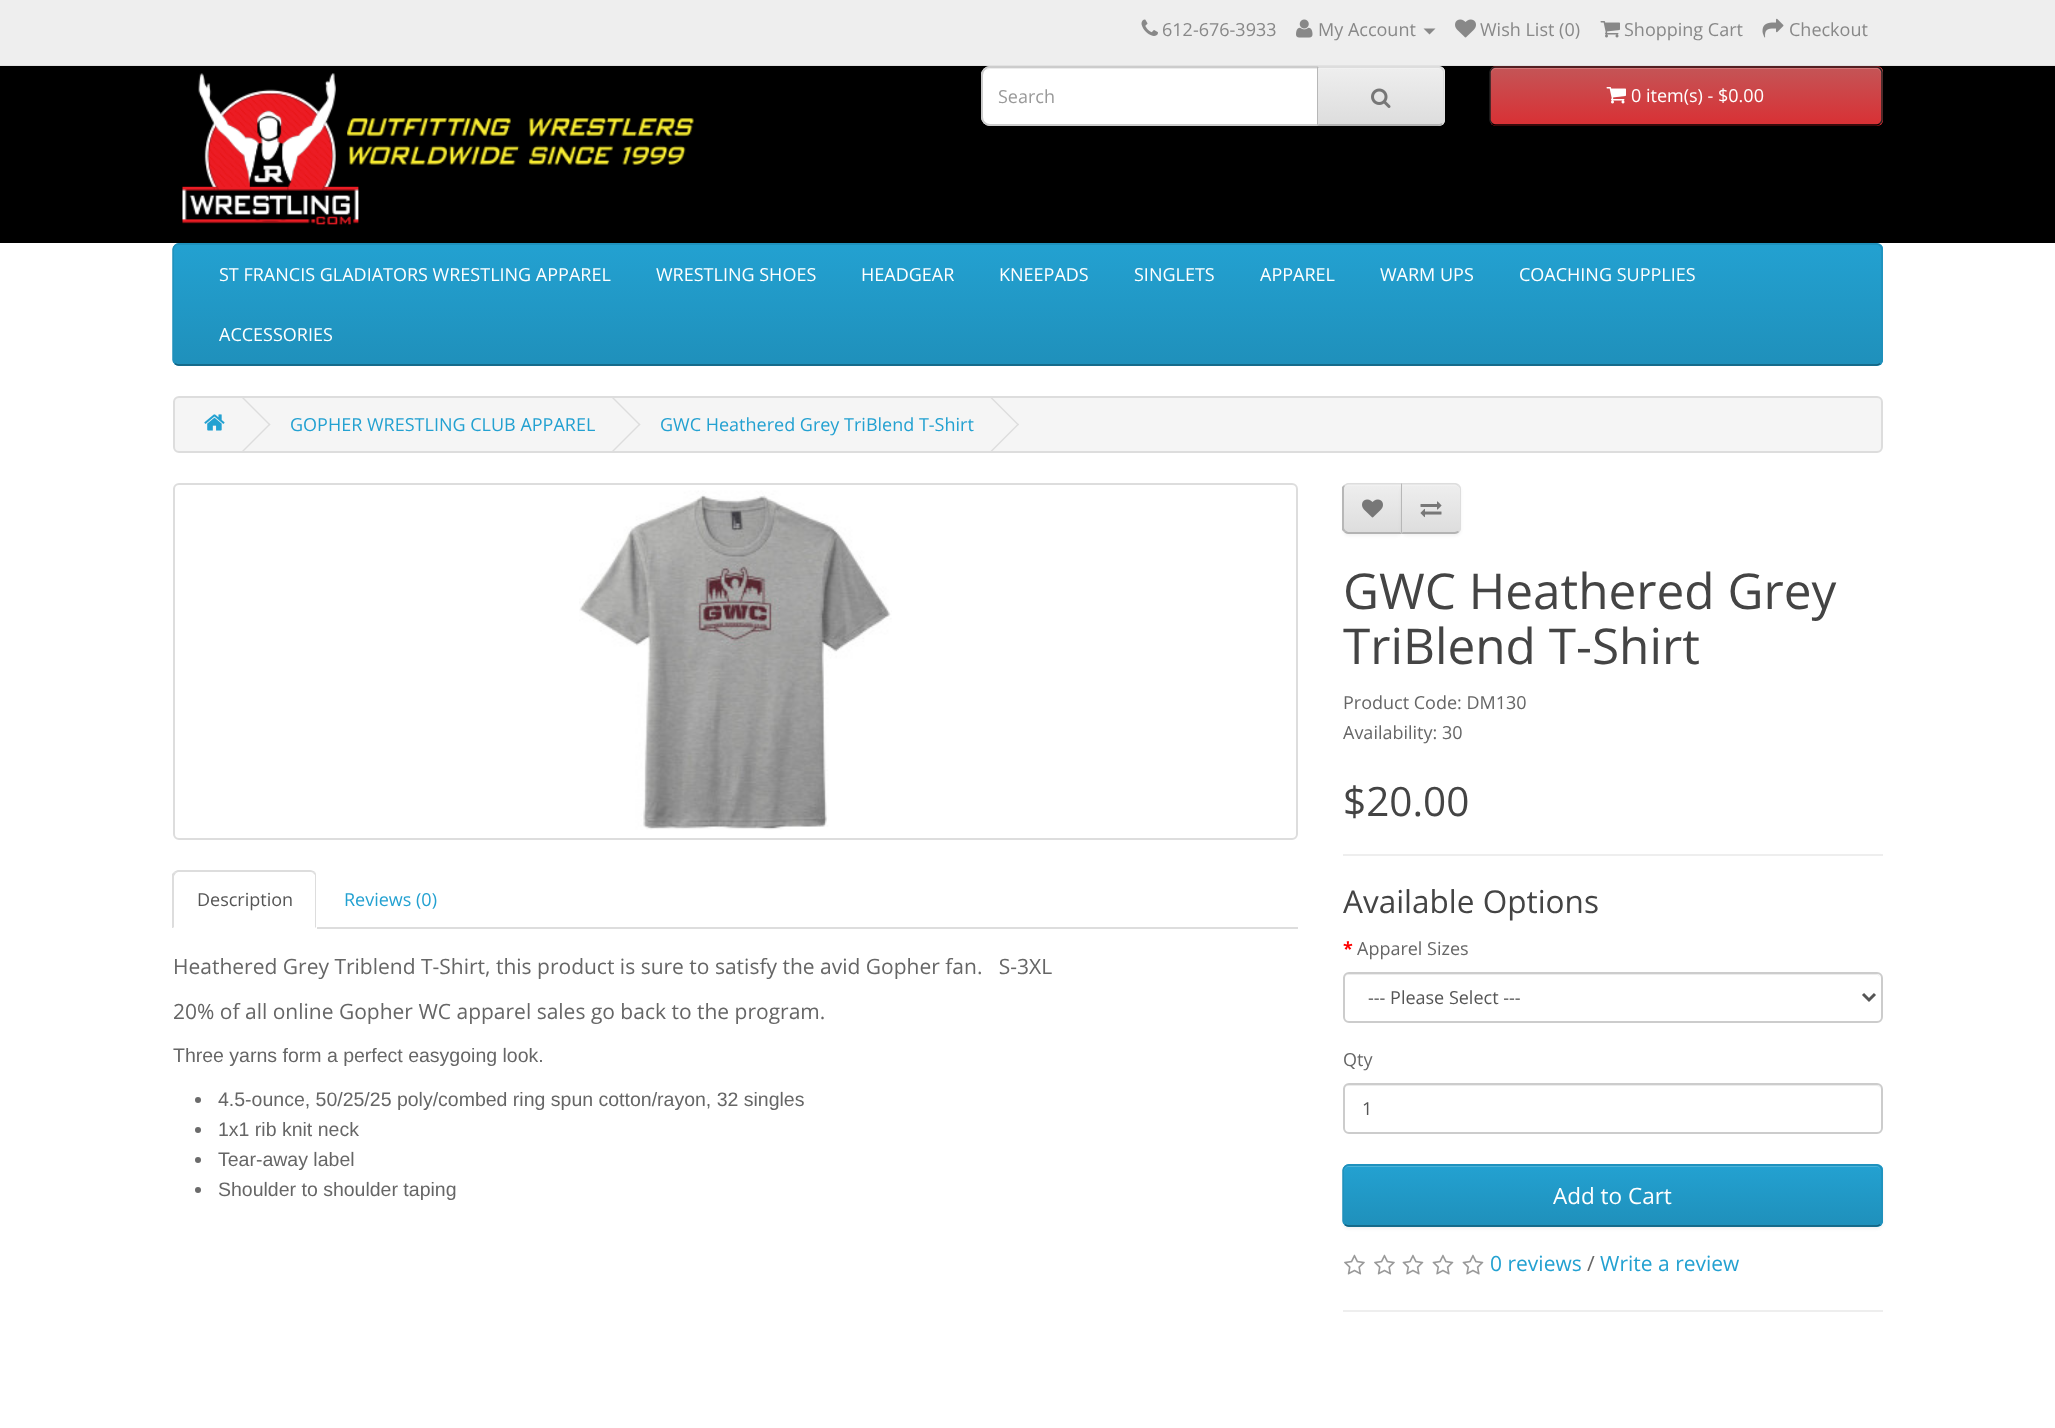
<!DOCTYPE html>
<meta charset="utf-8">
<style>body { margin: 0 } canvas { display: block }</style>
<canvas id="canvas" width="2055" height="1428"></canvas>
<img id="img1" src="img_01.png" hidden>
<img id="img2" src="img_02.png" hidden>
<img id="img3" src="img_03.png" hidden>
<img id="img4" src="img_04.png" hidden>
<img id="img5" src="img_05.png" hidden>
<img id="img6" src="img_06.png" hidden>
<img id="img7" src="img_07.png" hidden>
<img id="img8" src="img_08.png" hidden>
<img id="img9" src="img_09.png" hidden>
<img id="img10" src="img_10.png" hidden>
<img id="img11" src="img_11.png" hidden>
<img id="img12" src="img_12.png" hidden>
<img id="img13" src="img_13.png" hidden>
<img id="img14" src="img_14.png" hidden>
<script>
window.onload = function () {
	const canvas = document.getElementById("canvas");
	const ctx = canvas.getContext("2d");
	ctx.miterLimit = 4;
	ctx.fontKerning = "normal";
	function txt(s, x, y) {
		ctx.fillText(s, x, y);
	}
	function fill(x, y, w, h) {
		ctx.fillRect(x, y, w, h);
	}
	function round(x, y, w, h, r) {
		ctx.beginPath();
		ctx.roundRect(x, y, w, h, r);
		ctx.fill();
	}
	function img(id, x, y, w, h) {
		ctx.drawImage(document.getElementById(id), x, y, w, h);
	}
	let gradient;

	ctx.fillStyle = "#FFFFFF";
	fill(0, 0, 2055, 1428);
	ctx.fillStyle = "#EEEEEE";
	fill(0, 0, 2055, 65);
	ctx.fillStyle = "#E2E2E2";
	fill(0, 65, 2055, 1);
	img("img1", 1141, 19, 17, 17);
	img("img2", 1296, 19, 17, 19);
	ctx.fillStyle = "#888888";
	ctx.beginPath();
	ctx.moveTo(1423.5, 28.5);
	ctx.lineTo(1435.5, 28.5);
	ctx.lineTo(1429.5, 34.5);
	ctx.closePath();
	ctx.fill();
	img("img3", 1455, 19, 21, 19);
	img("img4", 1600, 21, 20, 17);
	img("img5", 1762, 18, 22, 20);
	ctx.fillStyle = "#000000";
	fill(0, 66, 2055, 177);
	img("img6", 182, 73, 512, 152);
	ctx.fillStyle = "#FFFFFF";
	ctx.beginPath();
	ctx.roundRect(981, 66, 338, 60, [9, 0, 0, 9]);
	ctx.fill();
	ctx.fillStyle = "#ECECEC";
	ctx.beginPath();
	ctx.moveTo(990, 69);
	ctx.lineTo(1317, 69);
	ctx.lineTo(1317, 68);
	ctx.lineTo(991, 68);
	ctx.bezierCurveTo(989, 68, 987, 69, 985, 70);
	ctx.bezierCurveTo(987, 70, 988, 69, 990, 69);
	ctx.closePath();
	ctx.fill();
	ctx.beginPath();
	ctx.roundRect(982, 67, 336, 58, [8, 0, 0, 8]);
	ctx.strokeStyle = "#CCCCCC";
	ctx.lineWidth = 2;
	ctx.stroke();
	ctx.fillStyle = "#E7E7E7";
	ctx.beginPath();
	ctx.roundRect(1317, 66, 128, 60, [0, 6, 6, 0]);
	ctx.fill();
	ctx.save();
	ctx.beginPath();
	ctx.roundRect(1317, 66, 128, 60, [0, 6, 6, 0]);
	ctx.clip();
	gradient = ctx.createLinearGradient(1381, 68, 1381, 125);
	gradient.addColorStop(0, "#EEEEEE");
	gradient.addColorStop(1, "#DDDDDD");
	ctx.fillStyle = gradient;
	fill(1318, 68, 127, 57);
	ctx.restore();
	ctx.fillStyle = "#F1F1F1";
	ctx.beginPath();
	ctx.moveTo(1319, 68);
	ctx.lineTo(1319, 69);
	ctx.lineTo(1438, 69);
	ctx.bezierCurveTo(1441, 69, 1443, 71, 1443, 74);
	ctx.bezierCurveTo(1443, 71, 1441, 68, 1438, 68);
	ctx.closePath();
	ctx.fill();
	ctx.fillStyle = "#DDDDDD";
	ctx.beginPath();
	ctx.moveTo(1317, 66);
	ctx.lineTo(1319, 68);
	ctx.lineTo(1438, 68);
	ctx.bezierCurveTo(1439, 68, 1441, 68, 1441, 69);
	ctx.lineTo(1443, 68);
	ctx.bezierCurveTo(1442, 67, 1440, 66, 1438, 66);
	ctx.closePath();
	ctx.fill();
	ctx.beginPath();
	ctx.moveTo(1443, 68);
	ctx.bezierCurveTo(1444, 69, 1444, 71, 1444, 72);
	ctx.lineTo(1444, 120);
	ctx.bezierCurveTo(1444, 121, 1444, 123, 1443, 124);
	ctx.lineTo(1441, 123);
	ctx.bezierCurveTo(1442, 122, 1443, 121, 1443, 120);
	ctx.lineTo(1443, 72);
	ctx.bezierCurveTo(1443, 71, 1442, 70, 1441, 69);
	ctx.closePath();
	ctx.fill();
	ctx.fillStyle = "#B3B3B3";
	ctx.beginPath();
	ctx.moveTo(1438, 126);
	ctx.bezierCurveTo(1440, 126, 1442, 125, 1443, 124);
	ctx.lineTo(1441, 123);
	ctx.bezierCurveTo(1441, 124, 1439, 124, 1438, 124);
	ctx.lineTo(1319, 124);
	ctx.lineTo(1317, 126);
	ctx.closePath();
	ctx.fill();
	ctx.fillStyle = "#B7B7B7";
	ctx.beginPath();
	ctx.moveTo(1317, 66);
	ctx.lineTo(1317, 126);
	ctx.lineTo(1319, 124);
	ctx.lineTo(1318, 124);
	ctx.lineTo(1318, 68);
	ctx.lineTo(1319, 68);
	ctx.closePath();
	ctx.fill();
	img("img7", 1371, 88, 20, 20);
	ctx.fillStyle = "#EB1A20";
	round(1490, 66, 393, 60, 6);
	ctx.save();
	ctx.beginPath();
	ctx.roundRect(1490, 66, 393, 60, 6);
	ctx.clip();
	gradient = ctx.createLinearGradient(1686, 67, 1686, 125);
	gradient.addColorStop(0, "#C45557");
	gradient.addColorStop(1, "#D93034");
	ctx.fillStyle = gradient;
	fill(1490, 68, 393, 57);
	ctx.restore();
	ctx.fillStyle = "#D17678";
	ctx.beginPath();
	ctx.moveTo(1496, 69);
	ctx.lineTo(1876, 69);
	ctx.bezierCurveTo(1879, 69, 1881, 71, 1881, 74);
	ctx.lineTo(1881, 73);
	ctx.bezierCurveTo(1881, 70, 1879, 68, 1876, 68);
	ctx.lineTo(1496, 68);
	ctx.bezierCurveTo(1493, 68, 1491, 70, 1491, 73);
	ctx.lineTo(1491, 74);
	ctx.bezierCurveTo(1491, 71, 1493, 69, 1496, 69);
	ctx.closePath();
	ctx.fill();
	ctx.beginPath();
	ctx.moveTo(1880, 123.5);
	ctx.bezierCurveTo(1879, 124.5, 1878, 125, 1876.5, 125);
	ctx.lineTo(1495.5, 125);
	ctx.bezierCurveTo(1494, 125, 1493, 124.5, 1492, 123.5);
	ctx.strokeStyle = "#000000";
	ctx.lineWidth = 1.5;
	ctx.stroke();
	ctx.beginPath();
	ctx.moveTo(1492, 123.5);
	ctx.bezierCurveTo(1491, 122.5, 1490, 121.5, 1490, 120);
	ctx.lineTo(1490, 72);
	ctx.bezierCurveTo(1490, 70.5, 1491, 69.5, 1492, 68.5);
	ctx.bezierCurveTo(1493, 67.5, 1494, 67, 1495.5, 67);
	ctx.lineTo(1876.5, 67);
	ctx.bezierCurveTo(1878, 67, 1879, 67.5, 1880, 68.5);
	ctx.bezierCurveTo(1881, 69.5, 1882, 70.5, 1882, 72);
	ctx.lineTo(1882, 120);
	ctx.bezierCurveTo(1882, 121.5, 1881, 122.5, 1880, 123.5);
	ctx.strokeStyle = "#222222";
	ctx.stroke();
	img("img8", 1606, 87, 20, 17);
	ctx.fillStyle = "#229AC8";
	round(173, 243, 1710, 123, 6);
	ctx.save();
	ctx.beginPath();
	ctx.roundRect(173, 243, 1710, 123, 6);
	ctx.clip();
	gradient = ctx.createLinearGradient(1028, 244, 1028, 365);
	gradient.addColorStop(0, "#23A1D1");
	gradient.addColorStop(1, "#1F90BB");
	ctx.fillStyle = gradient;
	fill(173, 245, 1710, 120);
	ctx.restore();
	ctx.beginPath();
	ctx.moveTo(1880, 363.5);
	ctx.bezierCurveTo(1879, 364.5, 1878, 365, 1876.5, 365);
	ctx.lineTo(178.5, 365);
	ctx.bezierCurveTo(177, 365, 176, 364.5, 175, 363.5);
	ctx.strokeStyle = "#145E7A";
	ctx.stroke();
	ctx.beginPath();
	ctx.moveTo(175, 363.5);
	ctx.bezierCurveTo(174, 362.5, 173, 361.5, 173, 360);
	ctx.lineTo(173, 249);
	ctx.bezierCurveTo(173, 247.5, 174, 246.5, 175, 245.5);
	ctx.bezierCurveTo(176, 244.5, 177, 244, 178.5, 244);
	ctx.lineTo(1876.5, 244);
	ctx.bezierCurveTo(1878, 244, 1879, 244.5, 1880, 245.5);
	ctx.bezierCurveTo(1881, 246.5, 1882, 247.5, 1882, 249);
	ctx.lineTo(1882, 360);
	ctx.bezierCurveTo(1882, 361.5, 1881, 362.5, 1880, 363.5);
	ctx.strokeStyle = "#1F90BB";
	ctx.stroke();
	ctx.fillStyle = "#F5F5F5";
	ctx.beginPath();
	ctx.roundRect(174, 397, 1708, 55, 5);
	ctx.fill();
	ctx.strokeStyle = "#DDDDDD";
	ctx.lineWidth = 2;
	ctx.stroke();
	img("img9", 204, 414, 21, 17);
	ctx.fillStyle = "#DDDDDD";
	ctx.beginPath();
	ctx.moveTo(242, 398);
	ctx.lineTo(243, 397);
	ctx.lineTo(270.5, 424.5);
	ctx.lineTo(269.5, 425.5);
	ctx.closePath();
	ctx.fill();
	ctx.beginPath();
	ctx.moveTo(242, 451);
	ctx.lineTo(269.5, 423.5);
	ctx.lineTo(270.5, 424.5);
	ctx.lineTo(243, 452);
	ctx.closePath();
	ctx.fill();
	ctx.beginPath();
	ctx.moveTo(612, 398);
	ctx.lineTo(613, 397);
	ctx.lineTo(640.5, 424.5);
	ctx.lineTo(639.5, 425.5);
	ctx.closePath();
	ctx.fill();
	ctx.beginPath();
	ctx.moveTo(612, 451);
	ctx.lineTo(639.5, 423.5);
	ctx.lineTo(640.5, 424.5);
	ctx.lineTo(613, 452);
	ctx.closePath();
	ctx.fill();
	ctx.beginPath();
	ctx.moveTo(990.5, 398);
	ctx.lineTo(991.5, 397);
	ctx.lineTo(1019, 424.5);
	ctx.lineTo(1018, 425.5);
	ctx.closePath();
	ctx.fill();
	ctx.beginPath();
	ctx.moveTo(990.5, 451);
	ctx.lineTo(1018, 423.5);
	ctx.lineTo(1019, 424.5);
	ctx.lineTo(991.5, 452);
	ctx.closePath();
	ctx.fill();
	ctx.beginPath();
	ctx.roundRect(174, 484, 1123, 355, 5);
	ctx.stroke();
	img("img10", 579, 490, 313, 340);
	fill(317, 927, 981, 2);
	ctx.beginPath();
	ctx.moveTo(178, 870);
	ctx.bezierCurveTo(177, 870, 175, 871, 174, 872);
	ctx.lineTo(176, 873);
	ctx.lineTo(178, 872);
	ctx.lineTo(310, 872);
	ctx.bezierCurveTo(311, 872, 313, 872, 313, 873);
	ctx.lineTo(315, 872);
	ctx.bezierCurveTo(314, 871, 312, 870, 310, 870);
	ctx.closePath();
	ctx.fill();
	ctx.beginPath();
	ctx.moveTo(315, 872);
	ctx.bezierCurveTo(316, 873, 316, 875, 316, 876);
	ctx.lineTo(316, 928);
	ctx.lineTo(315, 927);
	ctx.lineTo(315, 875);
	ctx.lineTo(313, 873);
	ctx.closePath();
	ctx.fill();
	ctx.beginPath();
	ctx.moveTo(172, 874);
	ctx.lineTo(174, 872);
	ctx.lineTo(176, 873);
	ctx.lineTo(174, 876);
	ctx.lineTo(174, 927);
	ctx.lineTo(173, 928);
	ctx.lineTo(172, 928);
	ctx.closePath();
	ctx.fill();
	ctx.fillStyle = "#6A6A6A";
	ctx.beginPath();
	ctx.arc(198, 1100, 3, 0, Math.PI * 2);
	ctx.fill();
	ctx.beginPath();
	ctx.arc(198, 1130, 3, 0, Math.PI * 2);
	ctx.fill();
	ctx.beginPath();
	ctx.arc(198, 1160, 3, 0, Math.PI * 2);
	ctx.fill();
	ctx.beginPath();
	ctx.arc(198, 1190, 3, 0, Math.PI * 2);
	ctx.fill();
	ctx.fillStyle = "rgba(0, 0, 0, 0.05)";
	ctx.filter = "blur(1.5px)";
	ctx.beginPath();
	ctx.roundRect(1343, 485, 60, 51, 6);
	ctx.fill();
	ctx.filter = "none";
	ctx.fillStyle = "#E7E7E7";
	ctx.beginPath();
	ctx.roundRect(1343, 483, 60, 51, [6, 0, 0, 6]);
	ctx.fill();
	ctx.save();
	ctx.beginPath();
	ctx.roundRect(1343, 483, 60, 51, [6, 0, 0, 6]);
	ctx.clip();
	gradient = ctx.createLinearGradient(1373, 485, 1373, 533);
	gradient.addColorStop(0, "#EEEEEE");
	gradient.addColorStop(1, "#DDDDDD");
	ctx.fillStyle = gradient;
	fill(1343, 485, 58, 48);
	ctx.restore();
	ctx.fillStyle = "#F1F1F1";
	ctx.beginPath();
	ctx.moveTo(1348, 486);
	ctx.lineTo(1401, 486);
	ctx.lineTo(1401, 485);
	ctx.lineTo(1349, 485);
	ctx.bezierCurveTo(1346, 485, 1344, 487, 1344, 490);
	ctx.bezierCurveTo(1344, 488, 1346, 486, 1348, 486);
	ctx.closePath();
	ctx.fill();
	ctx.fillStyle = "#DDDDDD";
	ctx.beginPath();
	ctx.moveTo(1348, 483);
	ctx.bezierCurveTo(1347, 483, 1345, 484, 1344, 485);
	ctx.lineTo(1345, 486);
	ctx.lineTo(1348, 484);
	ctx.lineTo(1401, 484);
	ctx.lineTo(1402, 483);
	ctx.closePath();
	ctx.fill();
	ctx.fillStyle = "#B3B3B3";
	ctx.beginPath();
	ctx.moveTo(1348, 534);
	ctx.lineTo(1402, 534);
	ctx.lineTo(1400, 532);
	ctx.lineTo(1348, 532);
	ctx.lineTo(1346, 531);
	ctx.lineTo(1344, 532);
	ctx.bezierCurveTo(1345, 533, 1347, 534, 1348, 534);
	ctx.closePath();
	ctx.fill();
	ctx.fillStyle = "#B7B7B7";
	ctx.beginPath();
	ctx.moveTo(1342, 487);
	ctx.lineTo(1344, 485);
	ctx.lineTo(1345, 486);
	ctx.bezierCurveTo(1344, 487, 1344, 488, 1344, 489);
	ctx.lineTo(1344, 528);
	ctx.bezierCurveTo(1344, 529, 1345, 530, 1346, 531);
	ctx.lineTo(1344, 532);
	ctx.lineTo(1342, 530);
	ctx.closePath();
	ctx.fill();
	img("img11", 1362, 499, 21, 19);
	ctx.fillStyle = "rgba(0, 0, 0, 0.05)";
	ctx.filter = "blur(1.5px)";
	ctx.beginPath();
	ctx.roundRect(1401, 485, 60, 51, 6);
	ctx.fill();
	ctx.filter = "none";
	ctx.fillStyle = "#E7E7E7";
	ctx.beginPath();
	ctx.roundRect(1401, 483, 60, 51, [0, 6, 6, 0]);
	ctx.fill();
	ctx.save();
	ctx.beginPath();
	ctx.roundRect(1401, 483, 60, 51, [0, 6, 6, 0]);
	ctx.clip();
	gradient = ctx.createLinearGradient(1431, 485, 1431, 533);
	gradient.addColorStop(0, "#EEEEEE");
	gradient.addColorStop(1, "#DDDDDD");
	ctx.fillStyle = gradient;
	fill(1402, 485, 59, 48);
	ctx.restore();
	ctx.fillStyle = "#F1F1F1";
	ctx.beginPath();
	ctx.moveTo(1403, 485);
	ctx.lineTo(1403, 486);
	ctx.lineTo(1455, 486);
	ctx.bezierCurveTo(1457, 486, 1460, 488, 1460, 490);
	ctx.bezierCurveTo(1460, 487, 1458, 485, 1455, 485);
	ctx.closePath();
	ctx.fill();
	ctx.fillStyle = "#DDDDDD";
	ctx.beginPath();
	ctx.moveTo(1401, 483);
	ctx.lineTo(1402, 484);
	ctx.lineTo(1455, 484);
	ctx.lineTo(1458, 486);
	ctx.lineTo(1459, 485);
	ctx.bezierCurveTo(1458, 484, 1456, 483, 1455, 483);
	ctx.closePath();
	ctx.fill();
	ctx.beginPath();
	ctx.moveTo(1461, 528);
	ctx.lineTo(1461, 489);
	ctx.bezierCurveTo(1461, 488, 1460, 486, 1459, 485);
	ctx.lineTo(1458, 486);
	ctx.bezierCurveTo(1459, 487, 1460, 488, 1460, 489);
	ctx.lineTo(1460, 528);
	ctx.bezierCurveTo(1460, 529, 1459, 530, 1458, 531);
	ctx.lineTo(1459, 532);
	ctx.bezierCurveTo(1460, 531, 1461, 530, 1461, 528);
	ctx.closePath();
	ctx.fill();
	ctx.fillStyle = "#B3B3B3";
	ctx.beginPath();
	ctx.moveTo(1455, 534);
	ctx.bezierCurveTo(1456, 534, 1458, 533, 1459, 532);
	ctx.lineTo(1458, 531);
	ctx.lineTo(1455, 532);
	ctx.lineTo(1403, 532);
	ctx.lineTo(1401, 534);
	ctx.closePath();
	ctx.fill();
	ctx.fillStyle = "#B7B7B7";
	ctx.beginPath();
	ctx.moveTo(1401, 483);
	ctx.lineTo(1401, 534);
	ctx.lineTo(1403, 532);
	ctx.lineTo(1402, 532);
	ctx.lineTo(1402, 484);
	ctx.closePath();
	ctx.fill();
	img("img12", 1420, 501, 22, 17);
	ctx.fillStyle = "#EEEEEE";
	fill(1343, 854, 540, 2);
	ctx.fillStyle = "#ECECEC";
	ctx.beginPath();
	ctx.moveTo(1348, 975);
	ctx.lineTo(1876, 975);
	ctx.bezierCurveTo(1879, 975, 1881, 977, 1881, 980);
	ctx.bezierCurveTo(1881, 977, 1879, 974, 1876, 974);
	ctx.lineTo(1349, 974);
	ctx.bezierCurveTo(1346, 974, 1344, 977, 1344, 980);
	ctx.bezierCurveTo(1344, 977, 1346, 975, 1348, 975);
	ctx.closePath();
	ctx.fill();
	ctx.beginPath();
	ctx.roundRect(1344, 973, 538, 49, 5);
	ctx.strokeStyle = "#CCCCCC";
	ctx.stroke();
	ctx.beginPath();
	ctx.moveTo(1863, 994);
	ctx.lineTo(1869, 1000);
	ctx.lineTo(1875, 994);
	ctx.strokeStyle = "#555555";
	ctx.lineWidth = 3;
	ctx.stroke();
	ctx.beginPath();
	ctx.moveTo(1348, 1086);
	ctx.lineTo(1876, 1086);
	ctx.bezierCurveTo(1879, 1086, 1881, 1088, 1881, 1090);
	ctx.bezierCurveTo(1881, 1087, 1879, 1085, 1876, 1085);
	ctx.lineTo(1349, 1085);
	ctx.bezierCurveTo(1346, 1085, 1344, 1087, 1344, 1090);
	ctx.bezierCurveTo(1344, 1088, 1346, 1086, 1348, 1086);
	ctx.closePath();
	ctx.fill();
	ctx.beginPath();
	ctx.roundRect(1344, 1084, 538, 49, 5);
	ctx.strokeStyle = "#CCCCCC";
	ctx.lineWidth = 2;
	ctx.stroke();
	ctx.fillStyle = "rgba(0, 0, 0, 0.05)";
	ctx.filter = "blur(1.5px)";
	ctx.beginPath();
	ctx.roundRect(1343, 1166, 540, 63, 6);
	ctx.fill();
	ctx.filter = "none";
	ctx.fillStyle = "#229AC8";
	round(1343, 1164, 540, 63, 6);
	ctx.save();
	ctx.beginPath();
	ctx.roundRect(1343, 1164, 540, 63, 6);
	ctx.clip();
	gradient = ctx.createLinearGradient(1613, 1166, 1613, 1226);
	gradient.addColorStop(0, "#23A1D1");
	gradient.addColorStop(1, "#1F90BB");
	ctx.fillStyle = gradient;
	fill(1343, 1166, 540, 60);
	ctx.restore();
	ctx.fillStyle = "#4FB4DA";
	ctx.beginPath();
	ctx.moveTo(1348, 1167);
	ctx.lineTo(1876, 1167);
	ctx.bezierCurveTo(1879, 1167, 1881, 1169, 1881, 1172);
	ctx.bezierCurveTo(1881, 1169, 1879, 1166, 1876, 1166);
	ctx.lineTo(1349, 1166);
	ctx.bezierCurveTo(1346, 1166, 1344, 1169, 1344, 1172);
	ctx.bezierCurveTo(1344, 1169, 1346, 1167, 1348, 1167);
	ctx.closePath();
	ctx.fill();
	ctx.beginPath();
	ctx.moveTo(1880, 1224.5);
	ctx.bezierCurveTo(1879, 1225.5, 1878, 1226, 1876.5, 1226);
	ctx.lineTo(1348.5, 1226);
	ctx.bezierCurveTo(1347, 1226, 1346, 1225.5, 1345, 1224.5);
	ctx.strokeStyle = "#145E7A";
	ctx.lineWidth = 1.5;
	ctx.stroke();
	ctx.beginPath();
	ctx.moveTo(1345, 1224.5);
	ctx.bezierCurveTo(1344, 1223.5, 1343, 1222.5, 1343, 1221);
	ctx.lineTo(1343, 1170);
	ctx.bezierCurveTo(1343, 1168.5, 1344, 1167.5, 1345, 1166.5);
	ctx.bezierCurveTo(1346, 1165.5, 1347, 1165, 1348.5, 1165);
	ctx.lineTo(1876.5, 1165);
	ctx.bezierCurveTo(1878, 1165, 1879, 1165.5, 1880, 1166.5);
	ctx.bezierCurveTo(1881, 1167.5, 1882, 1168.5, 1882, 1170);
	ctx.lineTo(1882, 1221);
	ctx.bezierCurveTo(1882, 1222.5, 1881, 1223.5, 1880, 1224.5);
	ctx.strokeStyle = "#1F90BB";
	ctx.stroke();
	img("img13", 1344, 1254, 21, 21);
	img("img13", 1374, 1254, 21, 21);
	img("img14", 1402, 1254, 22, 21);
	img("img14", 1432, 1254, 22, 21);
	img("img14", 1462, 1254, 22, 21);
	ctx.fillStyle = "#EEEEEE";
	fill(1343, 1310, 540, 2);
	ctx.font = "18px Open Sans";
	ctx.fillStyle = "#888888";
	txt("612-676-3933", 1162, 36);
	txt("My Account", 1318, 36);
	txt("Wish List (0)", 1480, 36);
	txt("Shopping Cart", 1624, 36);
	txt("Checkout", 1789, 36);
	ctx.fillStyle = "#999999";
	txt("Search", 998, 103);
	ctx.fillStyle = "#FFFFFF";
	txt("0 item(s) - $0.00", 1631, 102);
	txt("ST FRANCIS GLADIATORS WRESTLING APPAREL", 219, 281);
	txt("WRESTLING SHOES", 656, 281);
	txt("HEADGEAR", 861, 281);
	txt("KNEEPADS", 999, 281);
	txt("SINGLETS", 1134, 281);
	txt("APPAREL", 1260, 281);
	txt("WARM UPS", 1380, 281);
	txt("COACHING SUPPLIES", 1519, 281);
	txt("ACCESSORIES", 219, 341);
	ctx.fillStyle = "#23A1D1";
	txt("GOPHER WRESTLING CLUB APPAREL", 290, 431);
	txt("GWC Heathered Grey TriBlend T-Shirt", 660, 431);
	ctx.fillStyle = "#555555";
	txt("Description", 197, 906);
	ctx.fillStyle = "#23A1D1";
	txt("Reviews (0)", 344, 906);
	ctx.font = "21px Open Sans";
	ctx.fillStyle = "#666666";
	txt("Heathered Grey Triblend T-Shirt, this product is sure to satisfy the avid Gopher fan.   S-3XL", 173, 974);
	txt("20% of all online Gopher WC apparel sales go back to the program.", 173, 1019);
	ctx.font = "19.5px Liberation Sans";
	txt("Three yarns form a perfect easygoing look.", 173, 1062);
	txt("4.5-ounce, 50/25/25 poly/combed ring spun cotton/rayon, 32 singles", 218, 1106);
	txt("1x1 rib knit neck", 218, 1136);
	txt("Tear-away label", 218, 1166);
	txt("Shoulder to shoulder taping", 218, 1196);
	ctx.font = "49.5px Open Sans";
	ctx.fillStyle = "#444444";
	txt("GWC Heathered Grey", 1343, 609);
	txt("TriBlend T-Shirt", 1343, 664);
	ctx.font = "18px Open Sans";
	ctx.fillStyle = "#666666";
	txt("Product Code: DM130", 1343, 709);
	txt("Availability: 30", 1343, 739);
	ctx.font = "40.5px Open Sans";
	ctx.fillStyle = "#444444";
	txt("$20.00", 1343, 816);
	ctx.font = "31.5px Open Sans";
	txt("Available Options", 1343, 913);
	ctx.font = "bold 18px Open Sans";
	ctx.fillStyle = "#FF0000";
	txt("*", 1343, 955);
	ctx.font = "18px Open Sans";
	ctx.fillStyle = "#666666";
	txt("Apparel Sizes", 1357, 955);
	ctx.fillStyle = "#555555";
	txt("--- Please Select ---", 1368, 1004);
	ctx.fillStyle = "#666666";
	txt("Qty", 1343, 1066);
	ctx.fillStyle = "#555555";
	txt("1", 1362, 1115);
	ctx.font = "22.5px Open Sans";
	ctx.fillStyle = "#FFFFFF";
	txt("Add to Cart", 1553, 1204);
	ctx.font = "21px Open Sans";
	ctx.fillStyle = "#23A1D1";
	txt("0 reviews", 1490, 1271);
	ctx.fillStyle = "#666666";
	txt("/", 1587, 1271);
	ctx.fillStyle = "#23A1D1";
	txt("Write a review", 1600, 1271);
};
</script>
